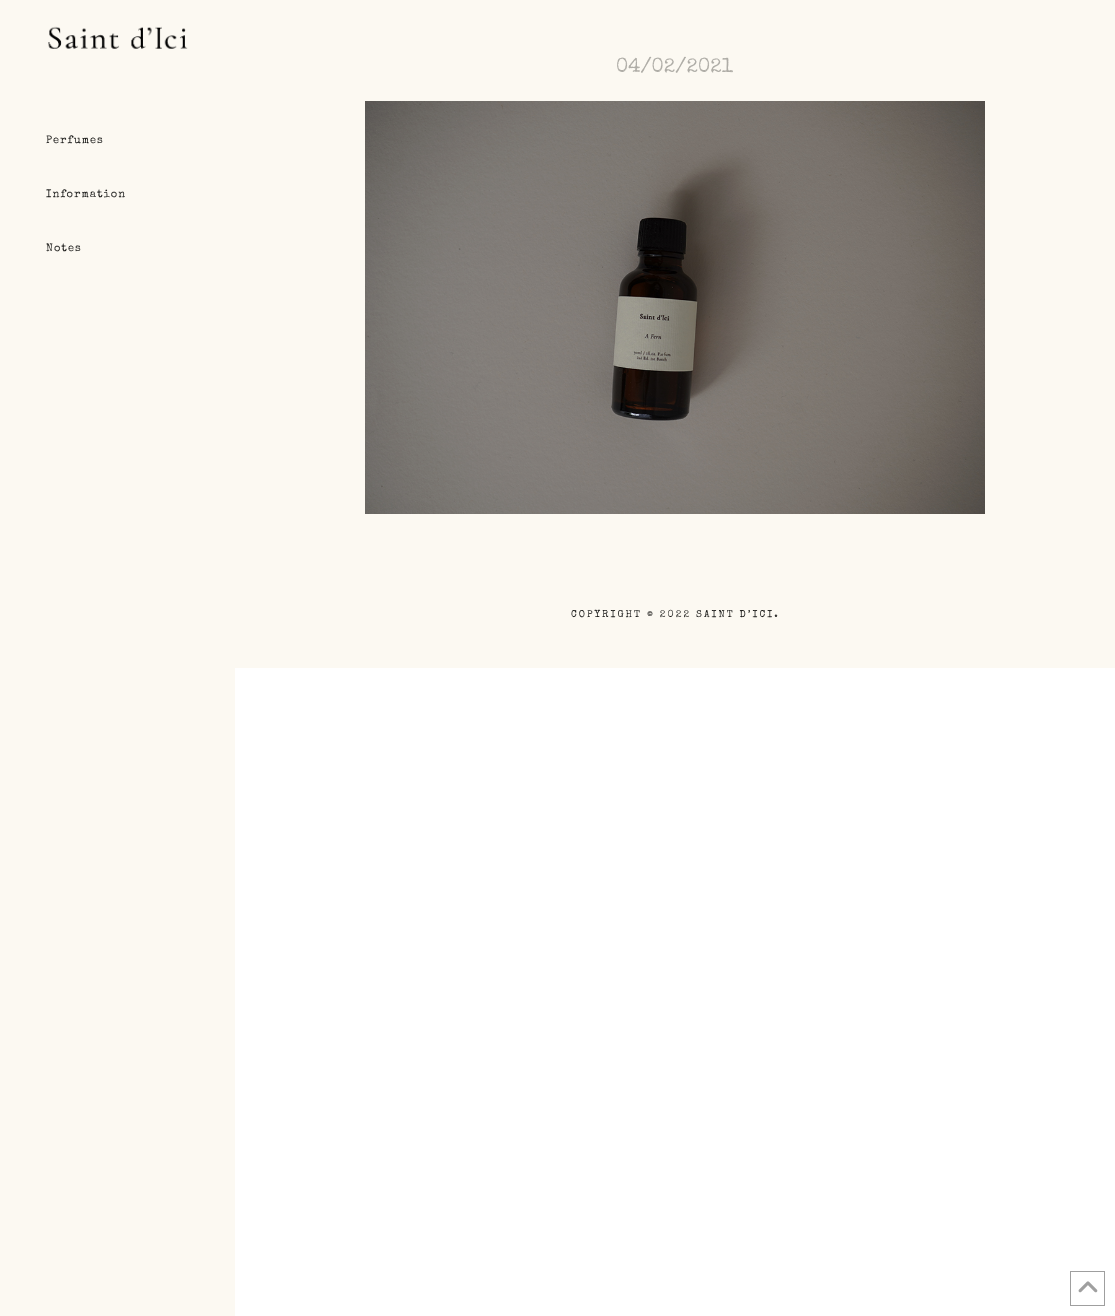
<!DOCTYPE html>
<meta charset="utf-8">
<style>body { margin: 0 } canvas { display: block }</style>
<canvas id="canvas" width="1115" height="1316"></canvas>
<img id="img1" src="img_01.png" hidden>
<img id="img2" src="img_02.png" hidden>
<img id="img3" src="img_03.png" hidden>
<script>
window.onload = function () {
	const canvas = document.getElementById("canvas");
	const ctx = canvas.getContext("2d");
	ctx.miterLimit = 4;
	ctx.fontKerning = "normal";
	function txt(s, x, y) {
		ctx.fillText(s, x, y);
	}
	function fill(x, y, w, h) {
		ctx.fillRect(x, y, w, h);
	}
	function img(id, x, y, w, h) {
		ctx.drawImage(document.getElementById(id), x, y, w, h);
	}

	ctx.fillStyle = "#FCF9F2";
	fill(0, 0, 1115, 1316);
	ctx.fillStyle = "#FFFFFF";
	fill(235, 668, 880, 648);
	img("img1", 365, 101, 620, 413);
	img("img2", 48, 26, 140, 23);
	ctx.strokeStyle = "#9F9F9F";
	ctx.strokeRect(1070.5, 1271.5, 34, 34);
	img("img3", 1078, 1281, 20, 12);
	ctx.font = "20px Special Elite";
	ctx.fillStyle = "#AFADA7";
	txt("04/02/2021", 616, 72);
	ctx.letterSpacing = "1px";
	ctx.font = "11px Special Elite";
	ctx.fillStyle = "#1F1F1D";
	txt("Perfumes", 46, 143);
	txt("Information", 46, 197);
	txt("Notes", 46, 251);
	ctx.letterSpacing = "2px";
	ctx.font = "10px Special Elite";
	txt("COPYRIGHT © 2022 SAINT D’ICI.", 571, 617);
};
</script>
